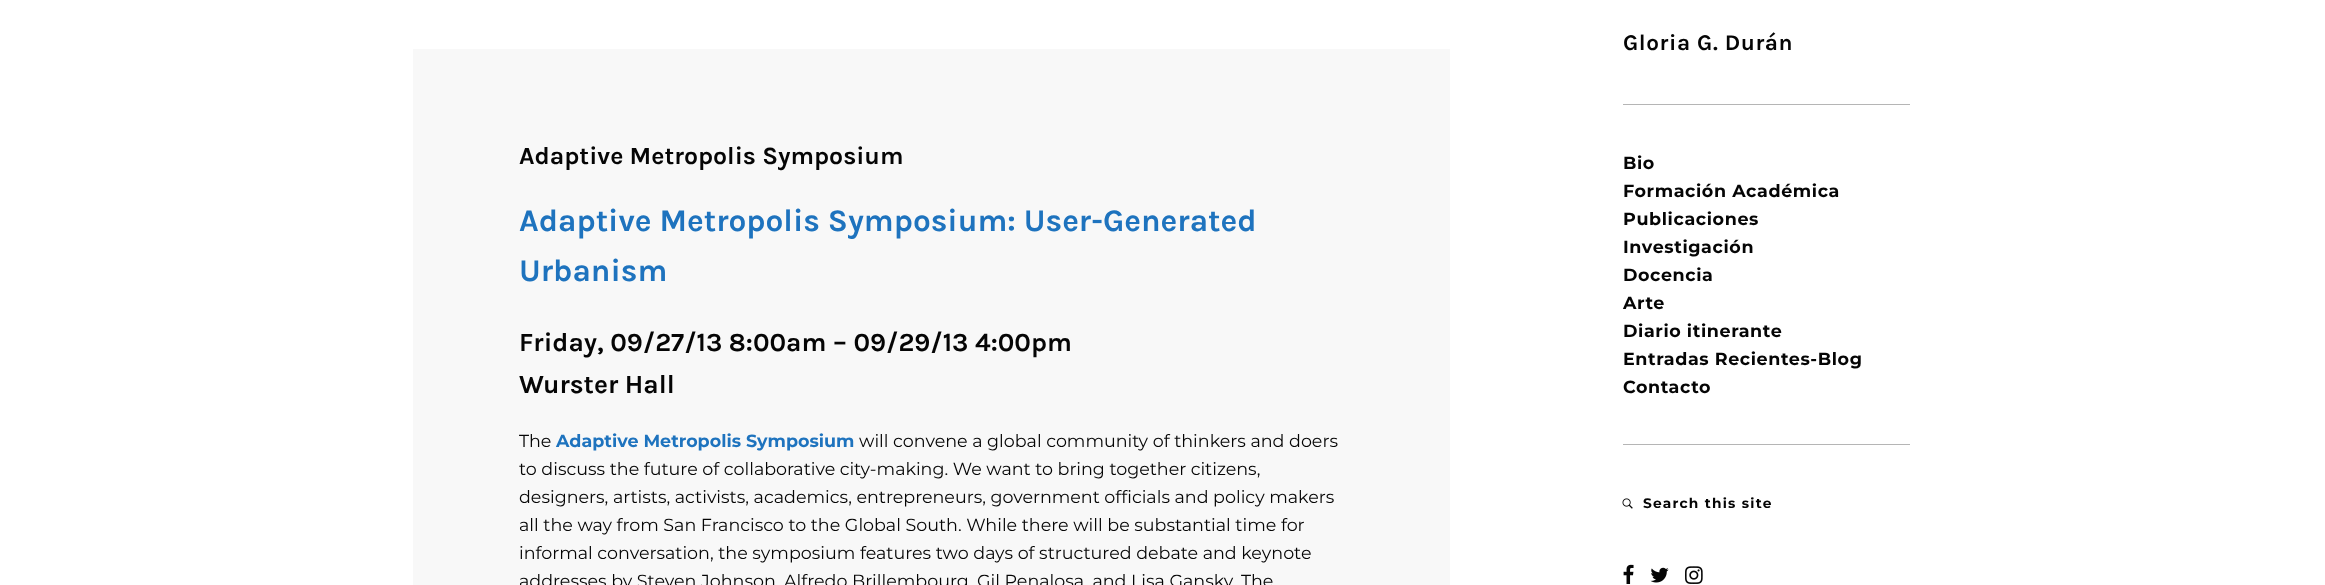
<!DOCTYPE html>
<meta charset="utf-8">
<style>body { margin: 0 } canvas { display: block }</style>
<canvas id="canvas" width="2325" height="585"></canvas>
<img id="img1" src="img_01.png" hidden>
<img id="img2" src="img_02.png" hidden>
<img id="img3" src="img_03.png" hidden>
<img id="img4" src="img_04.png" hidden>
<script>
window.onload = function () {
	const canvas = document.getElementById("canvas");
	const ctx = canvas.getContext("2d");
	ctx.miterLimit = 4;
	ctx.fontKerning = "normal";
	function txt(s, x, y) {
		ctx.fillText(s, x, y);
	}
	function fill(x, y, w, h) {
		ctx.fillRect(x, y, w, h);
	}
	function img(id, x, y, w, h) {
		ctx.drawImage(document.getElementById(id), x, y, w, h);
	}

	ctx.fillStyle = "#FFFFFF";
	fill(0, 0, 2325, 585);
	ctx.fillStyle = "#F8F8F8";
	fill(413, 49, 1037, 536);
	ctx.fillStyle = "#B5B5B5";
	fill(1623, 104, 287, 1);
	fill(1623, 444, 287, 1);
	img("img1", 1622, 498, 11, 11);
	img("img2", 1623, 564, 11, 20);
	img("img3", 1650, 567, 19, 16);
	img("img4", 1685, 566, 18, 18);
	ctx.font = "bold 24.8px Karla";
	ctx.fillStyle = "#050505";
	txt("Adaptive Metropolis Symposium", 519, 164);
	ctx.font = "bold 31.5px Karla";
	ctx.fillStyle = "#1E73BE";
	txt("Adaptive Metropolis Symposium: User-Generated", 519, 231);
	txt("Urbanism", 519, 281);
	ctx.font = "bold 26.25px Karla";
	ctx.fillStyle = "#050505";
	txt("Friday, 09/27/13 8:00am – 09/29/13 4:00pm", 519, 351);
	txt("Wurster Hall", 519, 393);
	ctx.font = "17.5px Montserrat";
	txt("The", 519, 447);
	ctx.font = "bold 17.5px Montserrat";
	ctx.fillStyle = "#1E73BE";
	txt("Adaptive Metropolis Symposium", 556, 447);
	ctx.font = "17.5px Montserrat";
	ctx.fillStyle = "#050505";
	txt("will convene a global community of thinkers and doers", 859, 447);
	txt("to discuss the future of collaborative city-making. We want to bring together citizens,", 519, 475);
	txt("designers, artists, activists, academics, entrepreneurs, government officials and policy makers", 519, 503);
	txt("all the way from San Francisco to the Global South. While there will be substantial time for", 519, 531);
	txt("informal conversation, the symposium features two days of structured debate and keynote", 519, 559);
	txt("addresses by Steven Johnson, Alfredo Brillembourg, Gil Penalosa, and Lisa Gansky. The", 519, 587);
	ctx.letterSpacing = "0.6px";
	ctx.font = "bold 22.5px Karla";
	txt("Gloria G. Durán", 1623, 50);
	ctx.font = "bold 17.5px Montserrat";
	txt("Bio", 1623, 169);
	txt("Formación Académica", 1623, 197);
	txt("Publicaciones", 1623, 225);
	txt("Investigación", 1623, 253);
	txt("Docencia", 1623, 281);
	txt("Arte", 1623, 309);
	txt("Diario itinerante", 1623, 337);
	txt("Entradas Recientes-Blog", 1623, 365);
	txt("Contacto", 1623, 393);
	ctx.letterSpacing = "1.25px";
	ctx.font = "bold 13.75px Montserrat";
	txt("Search this site", 1643, 508);
};
</script>
